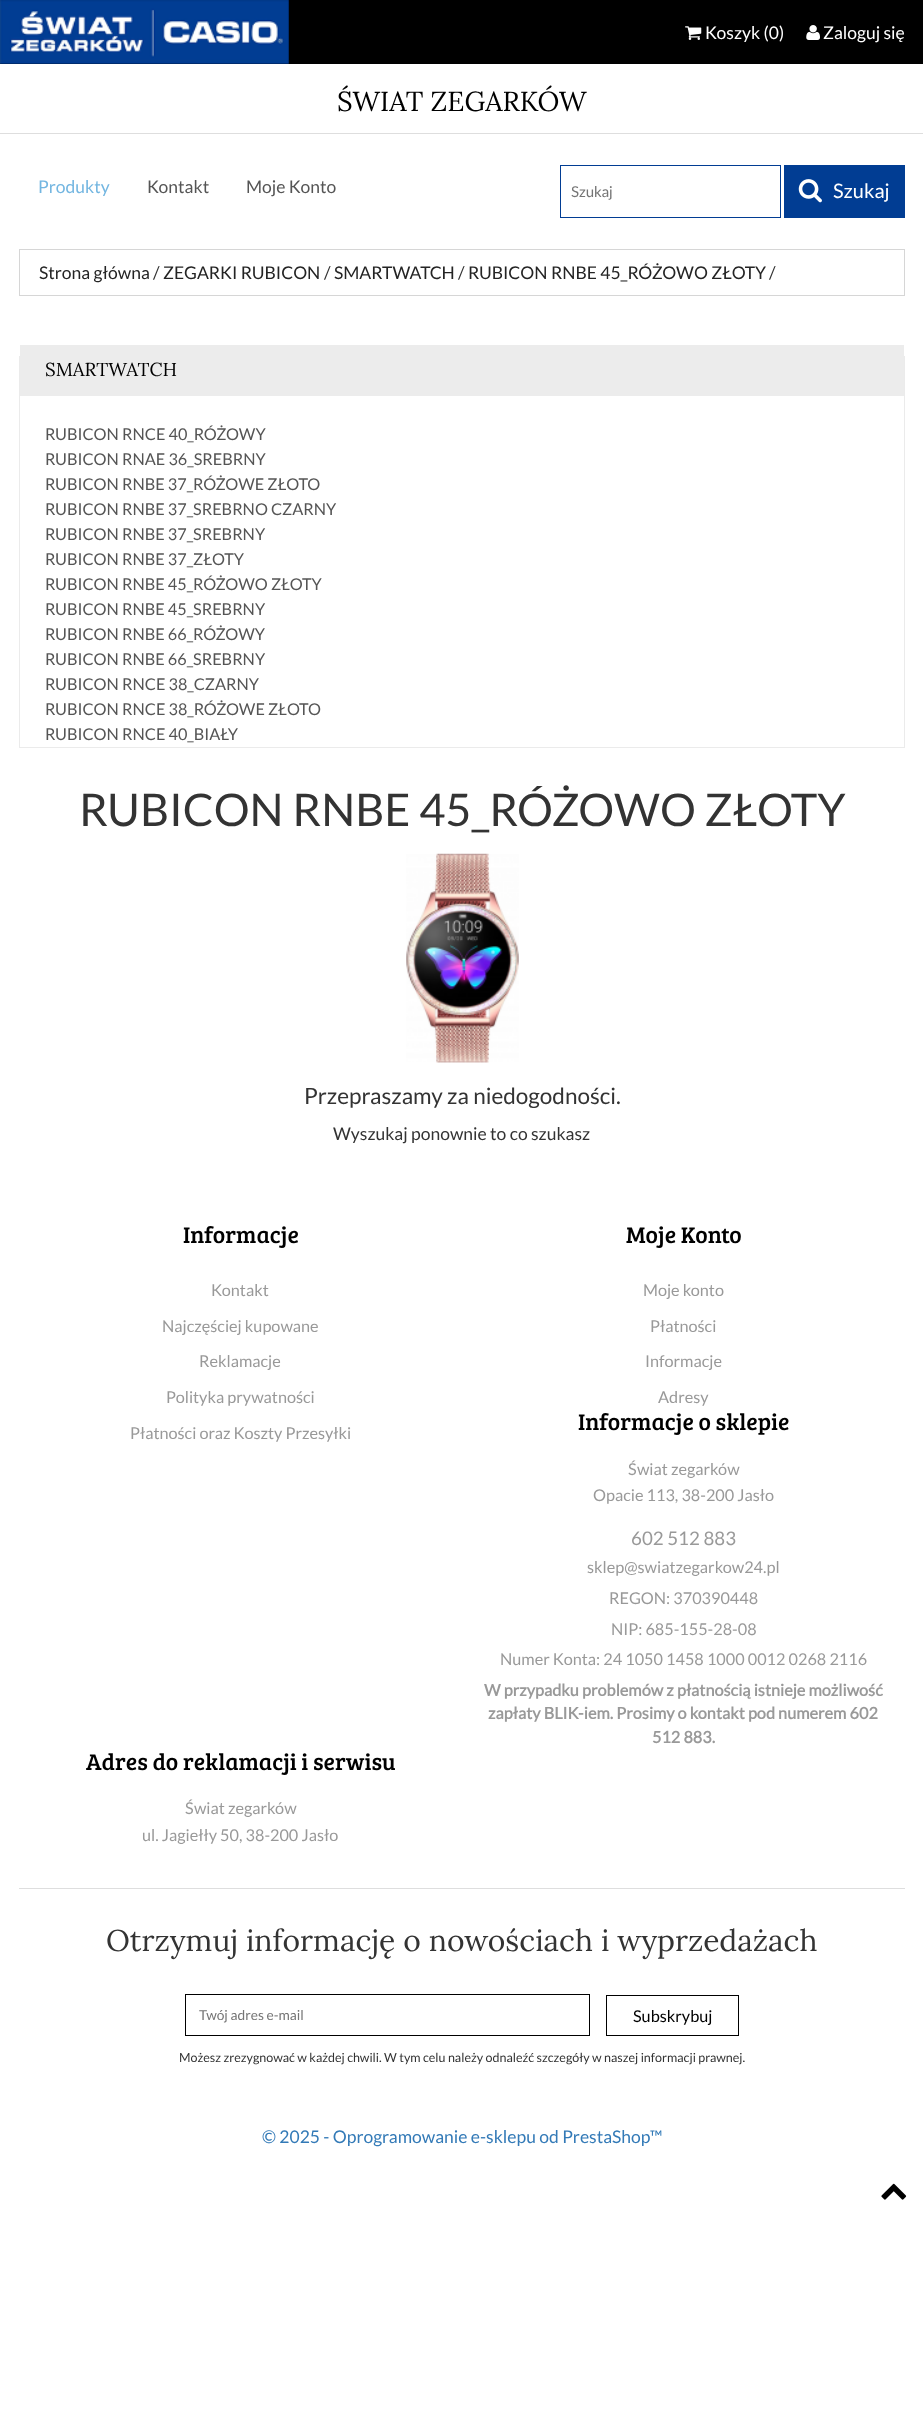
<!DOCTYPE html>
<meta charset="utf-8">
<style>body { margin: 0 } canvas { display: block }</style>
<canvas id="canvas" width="923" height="2411"></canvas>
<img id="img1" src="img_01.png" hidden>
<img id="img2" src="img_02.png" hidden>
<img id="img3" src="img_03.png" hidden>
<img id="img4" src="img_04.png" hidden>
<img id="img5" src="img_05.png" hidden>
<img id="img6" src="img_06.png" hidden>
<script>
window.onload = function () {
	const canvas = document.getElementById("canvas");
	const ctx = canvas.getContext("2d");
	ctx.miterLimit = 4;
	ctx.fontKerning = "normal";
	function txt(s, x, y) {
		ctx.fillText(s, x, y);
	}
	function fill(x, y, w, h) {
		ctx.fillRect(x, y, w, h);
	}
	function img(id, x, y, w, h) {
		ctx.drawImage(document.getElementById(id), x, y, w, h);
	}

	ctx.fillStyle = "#FFFFFF";
	fill(0, 0, 923, 2411);
	ctx.fillStyle = "#000000";
	fill(0, 0, 923, 64);
	img("img1", 0, 0, 289, 64);
	img("img2", 685, 26, 17, 14);
	img("img3", 806, 25, 14, 15);
	ctx.fillStyle = "#DEDEDE";
	fill(0, 133, 923, 1);
	ctx.strokeStyle = "#013D93";
	ctx.strokeRect(560.5, 165.5, 220, 52);
	ctx.fillStyle = "#013D93";
	fill(784, 165, 121, 53);
	img("img4", 798, 179, 24, 24);
	ctx.strokeStyle = "#D6D6D6";
	ctx.strokeRect(19.5, 249.5, 885, 46);
	ctx.strokeStyle = "#EBEBEB";
	ctx.strokeRect(19.5, 356.5, 885, 391);
	ctx.fillStyle = "#ECECEC";
	fill(20, 345, 884, 51);
	img("img5", 406, 853, 113, 210);
	ctx.fillStyle = "#DEDEDE";
	fill(19, 1888, 886, 1);
	ctx.strokeStyle = "#000000";
	ctx.strokeRect(185.5, 1994.5, 404, 41);
	ctx.strokeRect(606.5, 1995.5, 132, 40);
	img("img6", 881, 2183, 26, 17);
	ctx.font = "17.5px Lato";
	ctx.fillStyle = "#FFFFFF";
	txt("Koszyk (0)", 705, 39);
	txt("Zaloguj się", 823, 39);
	ctx.font = "27.5px Lora";
	ctx.fillStyle = "#000000";
	txt("ŚWIAT ZEGARKÓW", 337, 111);
	ctx.font = "17.5px Lato";
	ctx.fillStyle = "#73B6E1";
	txt("Produkty", 38, 193);
	ctx.fillStyle = "#555555";
	txt("Kontakt", 147, 193);
	txt("Moje Konto", 246, 193);
	ctx.font = "15px 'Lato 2'";
	ctx.fillStyle = "#757575";
	txt("Szukaj", 571, 197);
	ctx.font = "20px Lato";
	ctx.fillStyle = "#FFFFFF";
	txt("Szukaj", 833, 198);
	ctx.font = "17.5px Lato";
	ctx.fillStyle = "#242424";
	txt("Strona główna", 39, 279);
	ctx.fillStyle = "#333333";
	txt("/", 153, 279);
	ctx.fillStyle = "#242424";
	txt("ZEGARKI RUBICON", 163, 279);
	ctx.fillStyle = "#333333";
	txt("/", 324, 279);
	ctx.fillStyle = "#242424";
	txt("SMARTWATCH", 334, 279);
	ctx.fillStyle = "#333333";
	txt("/", 458, 279);
	ctx.fillStyle = "#242424";
	txt("RUBICON RNBE 45_RÓŻOWO ZŁOTY", 468, 279);
	ctx.fillStyle = "#333333";
	txt("/", 769, 279);
	ctx.font = "18.75px Lora";
	ctx.fillStyle = "#000000";
	txt("SMARTWATCH", 45, 376);
	ctx.font = "16.25px Lato";
	ctx.fillStyle = "#555555";
	txt("RUBICON RNCE 40_RÓŻOWY", 45, 440);
	txt("RUBICON RNAE 36_SREBRNY", 45, 465);
	txt("RUBICON RNBE 37_RÓŻOWE ZŁOTO", 45, 490);
	txt("RUBICON RNBE 37_SREBRNO CZARNY", 45, 515);
	txt("RUBICON RNBE 37_SREBRNY", 45, 540);
	txt("RUBICON RNBE 37_ZŁOTY", 45, 565);
	txt("RUBICON RNBE 45_RÓŻOWO ZŁOTY", 45, 590);
	txt("RUBICON RNBE 45_SREBRNY", 45, 615);
	txt("RUBICON RNBE 66_RÓŻOWY", 45, 640);
	txt("RUBICON RNBE 66_SREBRNY", 45, 665);
	txt("RUBICON RNCE 38_CZARNY", 45, 690);
	txt("RUBICON RNCE 38_RÓŻOWE ZŁOTO", 45, 715);
	txt("RUBICON RNCE 40_BIAŁY", 45, 740);
	ctx.font = "45px Lato";
	ctx.fillStyle = "#333333";
	txt("RUBICON RNBE 45_RÓŻOWO ZŁOTY", 79, 826);
	ctx.font = "22.5px Lato";
	txt("Przepraszamy za niedogodności.", 304, 1104);
	ctx.font = "17.5px Lato";
	txt("Wyszukaj ponownie to co szukasz", 333, 1140);
	ctx.font = "23.5px Bree Serif";
	ctx.fillStyle = "#000000";
	txt("Informacje", 183, 1243);
	ctx.font = "16.25px Lato";
	ctx.fillStyle = "#999999";
	txt("Kontakt", 211, 1296);
	txt("Najczęściej kupowane", 162, 1332);
	txt("Reklamacje", 199, 1367);
	txt("Polityka prywatności", 166, 1403);
	txt("Płatności oraz Koszty Przesyłki", 130, 1439);
	ctx.font = "23.5px Bree Serif";
	ctx.fillStyle = "#000000";
	txt("Moje Konto", 626, 1243);
	ctx.font = "16.25px Lato";
	ctx.fillStyle = "#999999";
	txt("Moje konto", 643, 1296);
	txt("Płatności", 650, 1332);
	txt("Informacje", 645, 1367);
	txt("Adresy", 658, 1403);
	ctx.font = "23.5px Bree Serif";
	ctx.fillStyle = "#000000";
	txt("Informacje o sklepie", 578, 1430);
	ctx.font = "16.25px Lato";
	ctx.fillStyle = "#999999";
	txt("Świat zegarków", 628, 1475);
	txt("Opacie 113, 38-200 Jasło", 593, 1501);
	ctx.font = "18.75px Lato";
	txt("602 512 883", 631, 1545);
	ctx.font = "16.25px Lato";
	txt("sklep@swiatzegarkow24.pl", 587, 1573);
	txt("REGON: 370390448", 609, 1604);
	txt("NIP: 685-155-28-08", 611, 1635);
	txt("Numer Konta: 24 1050 1458 1000 0012 0268 2116", 500, 1665);
	ctx.font = "bold 16.25px Lato";
	txt("W przypadku problemów z płatnością istnieje możliwość", 484, 1696);
	txt("zapłaty BLIK-iem. Prosimy o kontakt pod numerem 602", 488, 1719);
	txt("512 883.", 652, 1743);
	ctx.font = "23.5px Bree Serif";
	ctx.fillStyle = "#000000";
	txt("Adres do reklamacji i serwisu", 86, 1770);
	ctx.font = "16.25px Lato";
	ctx.fillStyle = "#999999";
	txt("Świat zegarków", 185, 1814);
	txt("ul. Jagiełły 50, 38-200 Jasło", 142, 1841);
	ctx.font = "30px Lora";
	ctx.fillStyle = "#333333";
	txt("Otrzymuj informację o nowościach i wyprzedażach", 106, 1951);
	ctx.font = "13.75px Lato";
	ctx.fillStyle = "#757575";
	txt("Twój adres e-mail", 199, 2020);
	ctx.font = "16.25px Lato";
	ctx.fillStyle = "#000000";
	txt("Subskrybuj", 633, 2022);
	ctx.font = "12.5px Lato";
	ctx.fillStyle = "#333333";
	txt("Możesz zrezygnować w każdej chwili. W tym celu należy odnaleźć szczegóły w naszej informacji prawnej.", 179, 2062);
	ctx.font = "17.5px Lato";
	ctx.fillStyle = "#337AB7";
	txt("© 2025 - Oprogramowanie e-sklepu od PrestaShop™", 262, 2143);
};
</script>
